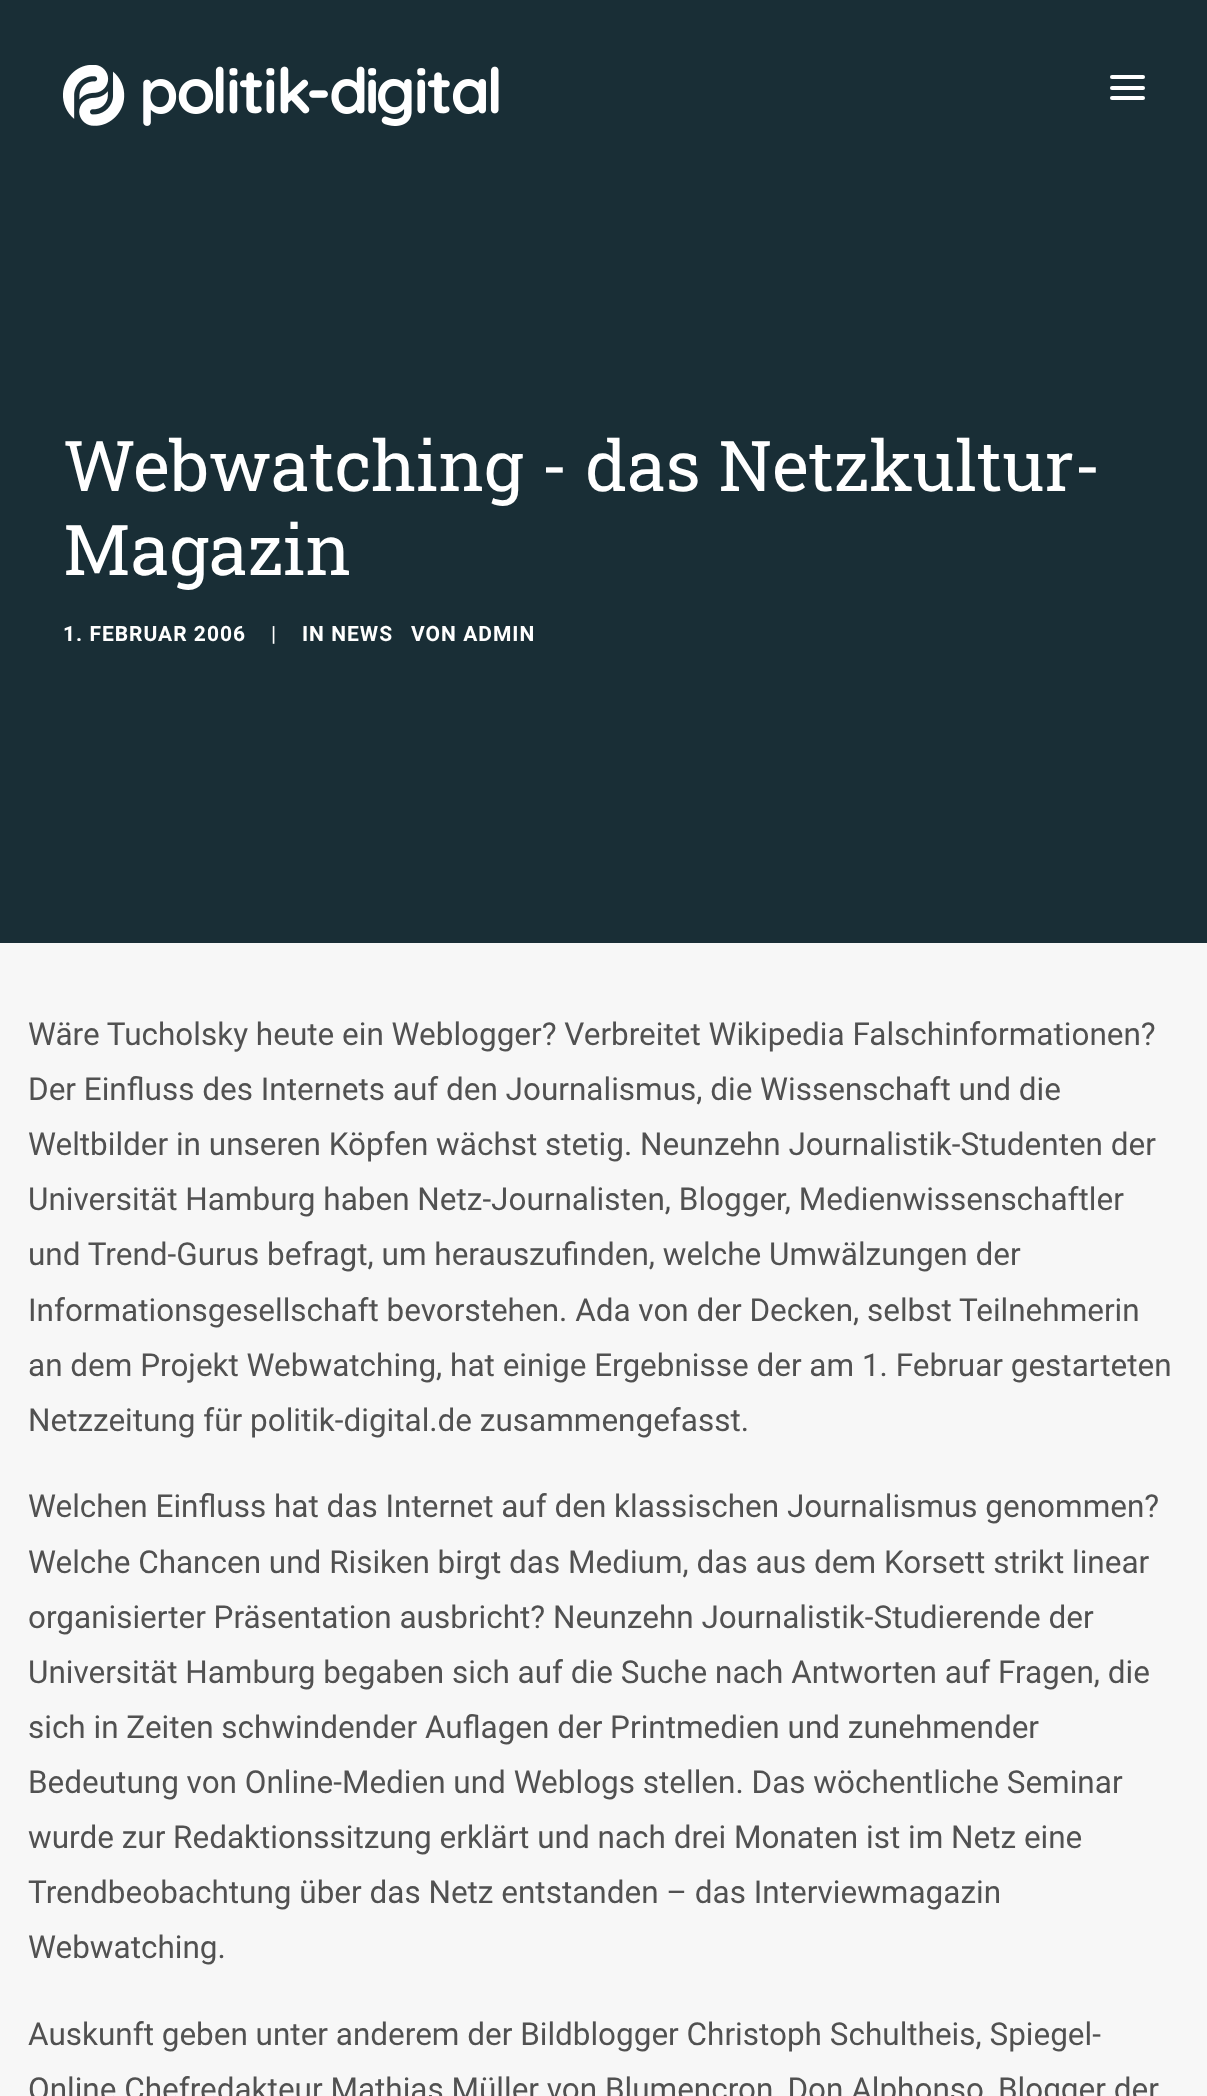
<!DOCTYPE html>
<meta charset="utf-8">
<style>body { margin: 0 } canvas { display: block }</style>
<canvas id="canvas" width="1207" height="2096"></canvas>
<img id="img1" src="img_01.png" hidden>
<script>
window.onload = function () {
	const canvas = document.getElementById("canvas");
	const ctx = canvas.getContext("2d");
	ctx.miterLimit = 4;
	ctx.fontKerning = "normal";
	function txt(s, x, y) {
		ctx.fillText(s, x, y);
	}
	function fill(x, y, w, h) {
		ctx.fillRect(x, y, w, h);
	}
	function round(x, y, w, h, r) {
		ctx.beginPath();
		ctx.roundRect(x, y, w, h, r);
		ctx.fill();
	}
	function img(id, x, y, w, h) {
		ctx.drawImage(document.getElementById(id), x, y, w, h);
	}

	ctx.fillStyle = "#F7F7F7";
	fill(0, 0, 1207, 2096);
	ctx.fillStyle = "#192E36";
	fill(0, 0, 1207, 943);
	img("img1", 63, 65, 436, 61);
	ctx.fillStyle = "#FFFFFF";
	round(1110, 86, 35, 4, 2);
	round(1110, 75, 35, 4, 2);
	round(1110, 96, 35, 4, 2);
	ctx.font = "70px Roboto Slab";
	txt("Webwatching - das Netzkultur-", 63, 491);
	txt("Magazin", 63, 575);
	ctx.letterSpacing = "1px";
	ctx.font = "bold 21px Roboto";
	txt("1. FEBRUAR 2006", 63, 641);
	ctx.font = "21px Roboto";
	txt("|", 271, 641);
	ctx.font = "bold 21px Roboto";
	txt("IN NEWS", 302, 641);
	txt("VON ADMIN", 411, 641);
	ctx.letterSpacing = "0px";
	ctx.font = "31.5px Roboto";
	ctx.fillStyle = "#515151";
	txt("Wäre Tucholsky heute ein Weblogger? Verbreitet Wikipedia Falschinformationen?", 28, 1045);
	txt("Der Einfluss des Internets auf den Journalismus, die Wissenschaft und die", 28, 1100);
	txt("Weltbilder in unseren Köpfen wächst stetig. Neunzehn Journalistik-Studenten der", 28, 1155);
	txt("Universität Hamburg haben Netz-Journalisten, Blogger, Medienwissenschaftler", 28, 1210);
	txt("und Trend-Gurus befragt, um herauszufinden, welche Umwälzungen der", 28, 1265);
	txt("Informationsgesellschaft bevorstehen. Ada von der Decken, selbst Teilnehmerin", 28, 1321);
	txt("an dem Projekt Webwatching, hat einige Ergebnisse der am 1. Februar gestarteten", 28, 1376);
	txt("Netzzeitung für politik-digital.de zusammengefasst.", 28, 1431);
	txt("Welchen Einfluss hat das Internet auf den klassischen Journalismus genommen?", 28, 1517);
	txt("Welche Chancen und Risiken birgt das Medium, das aus dem Korsett strikt linear", 28, 1573);
	txt("organisierter Präsentation ausbricht? Neunzehn Journalistik-Studierende der", 28, 1628);
	txt("Universität Hamburg begaben sich auf die Suche nach Antworten auf Fragen, die", 28, 1683);
	txt("sich in Zeiten schwindender Auflagen der Printmedien und zunehmender", 28, 1738);
	txt("Bedeutung von Online-Medien und Weblogs stellen. Das wöchentliche Seminar", 28, 1793);
	txt("wurde zur Redaktionssitzung erklärt und nach drei Monaten ist im Netz eine", 28, 1848);
	txt("Trendbeobachtung über das Netz entstanden – das Interviewmagazin", 28, 1903);
	txt("Webwatching.", 28, 1958);
	txt("Auskunft geben unter anderem der Bildblogger Christoph Schultheis, Spiegel-", 28, 2045);
	txt("Online Chefredakteur Mathias Müller von Blumencron, Don Alphonso, Blogger der", 28, 2100);
};
</script>
